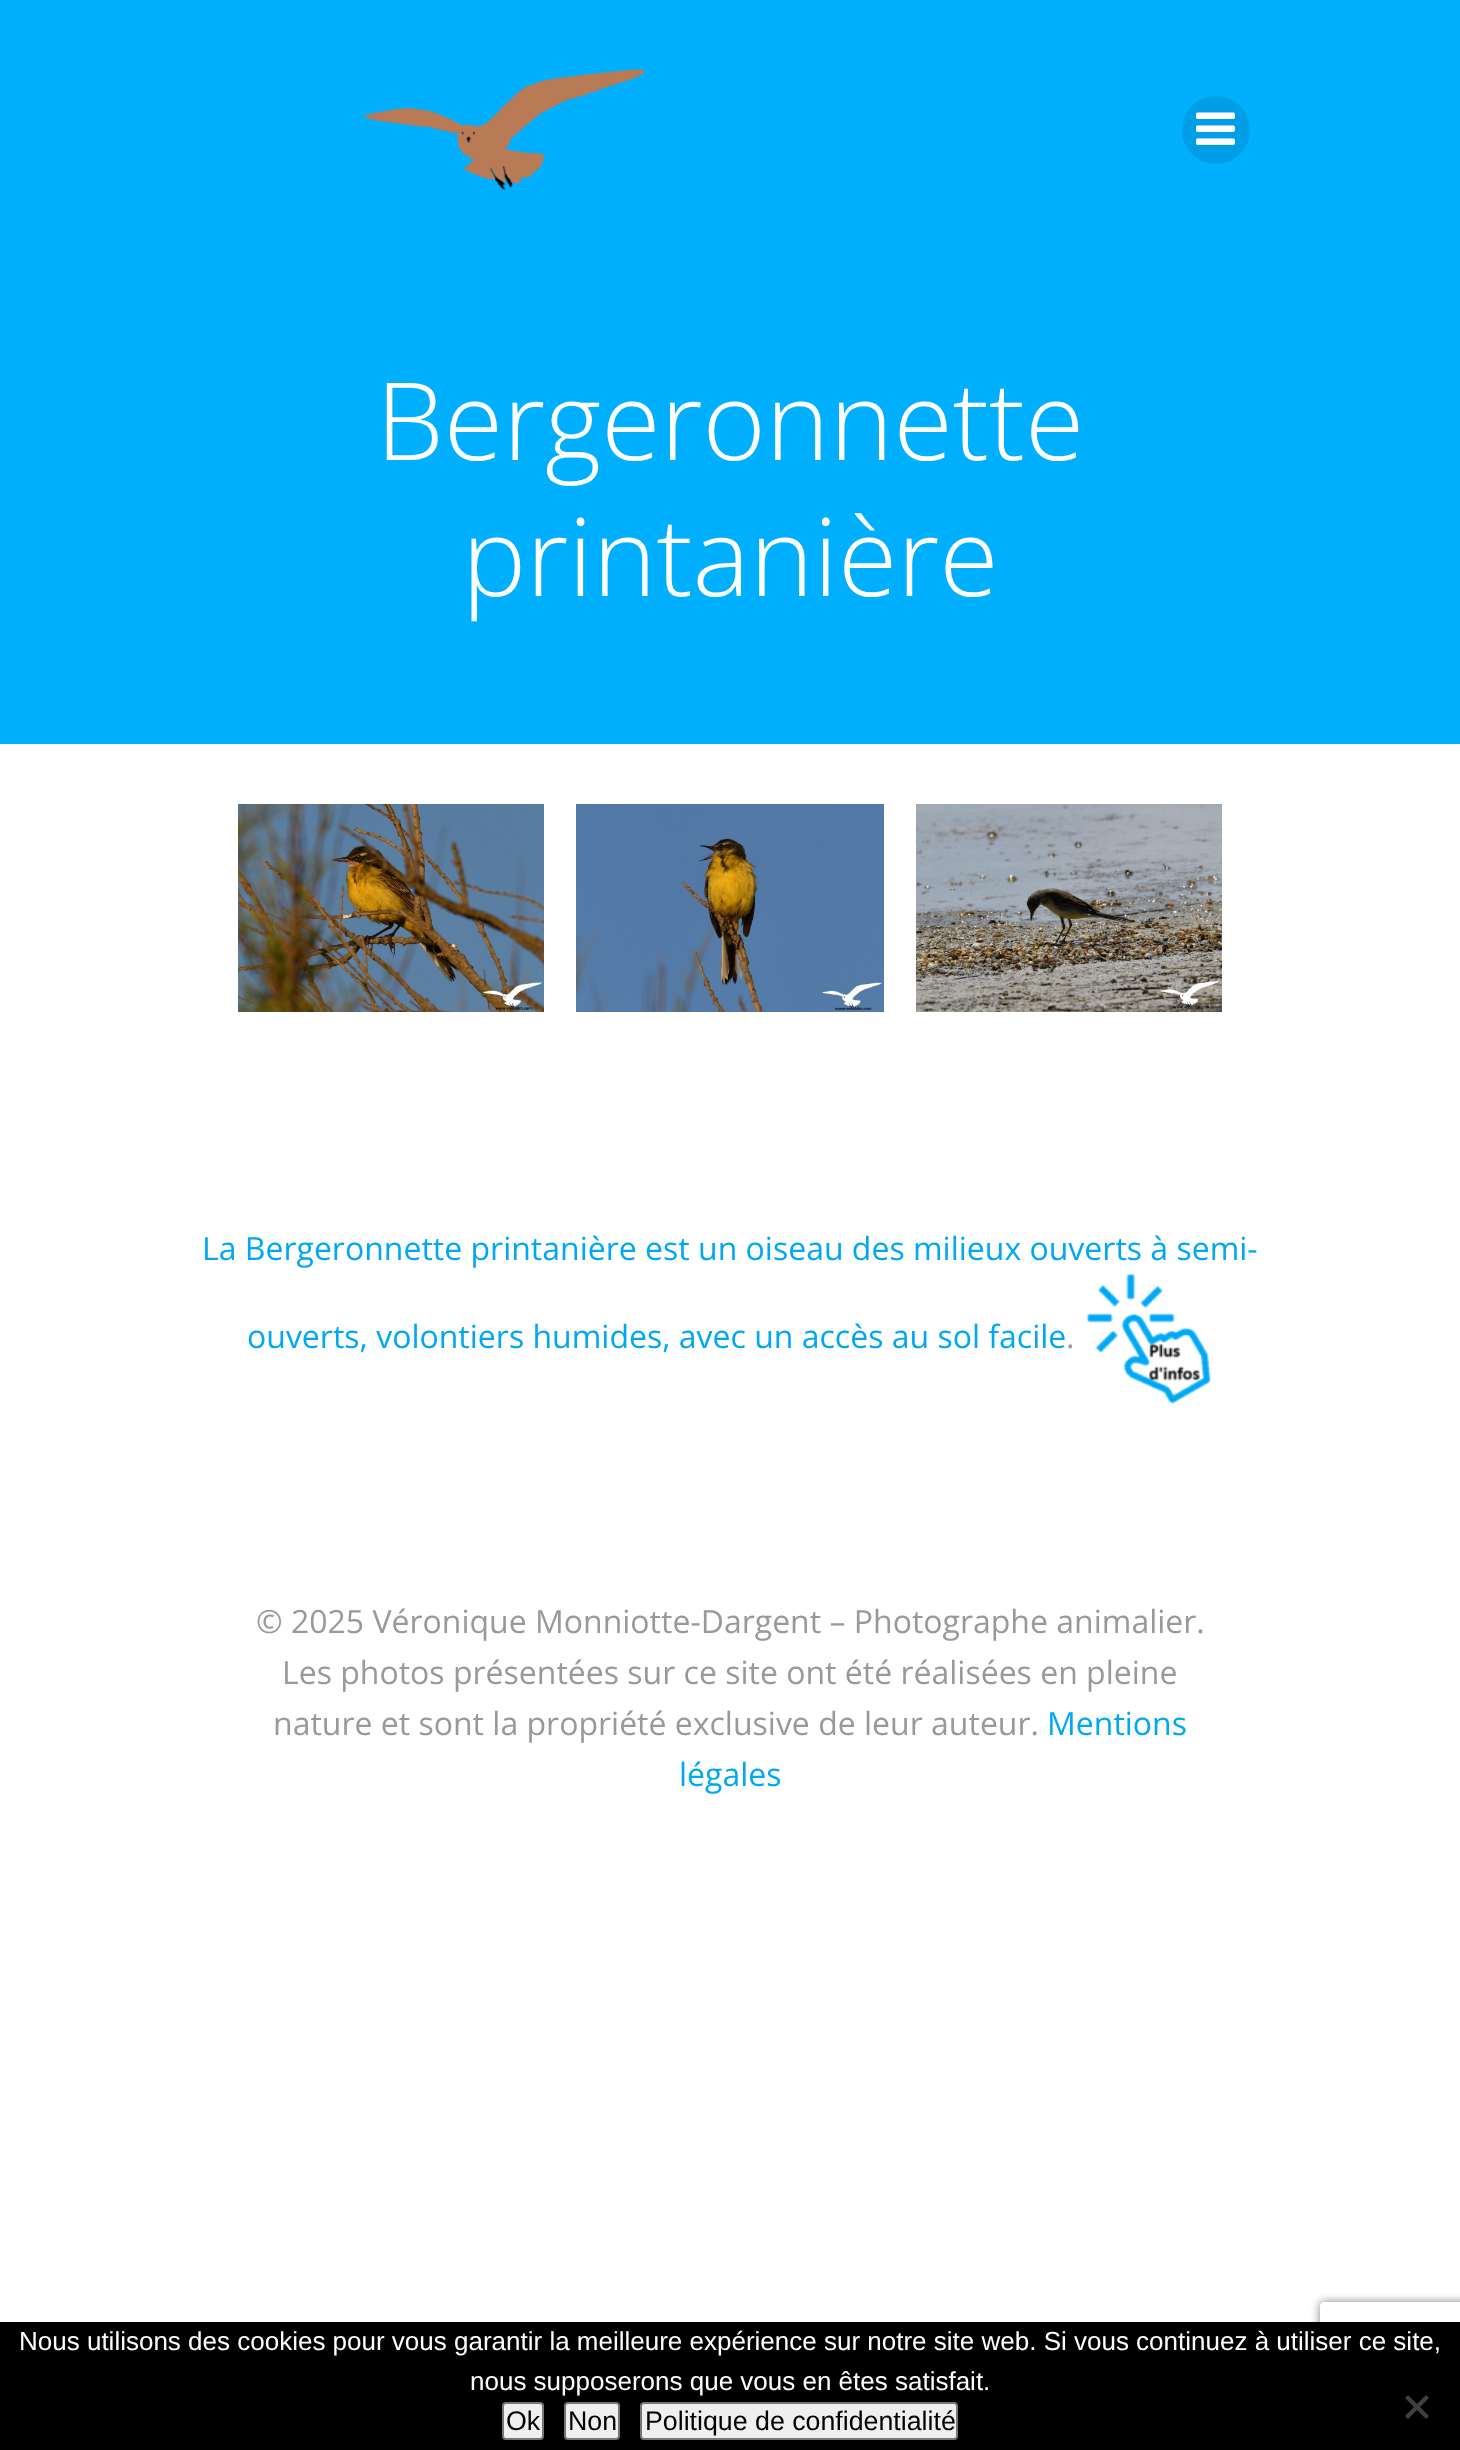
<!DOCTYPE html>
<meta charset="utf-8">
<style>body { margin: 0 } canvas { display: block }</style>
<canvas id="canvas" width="1460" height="2450"></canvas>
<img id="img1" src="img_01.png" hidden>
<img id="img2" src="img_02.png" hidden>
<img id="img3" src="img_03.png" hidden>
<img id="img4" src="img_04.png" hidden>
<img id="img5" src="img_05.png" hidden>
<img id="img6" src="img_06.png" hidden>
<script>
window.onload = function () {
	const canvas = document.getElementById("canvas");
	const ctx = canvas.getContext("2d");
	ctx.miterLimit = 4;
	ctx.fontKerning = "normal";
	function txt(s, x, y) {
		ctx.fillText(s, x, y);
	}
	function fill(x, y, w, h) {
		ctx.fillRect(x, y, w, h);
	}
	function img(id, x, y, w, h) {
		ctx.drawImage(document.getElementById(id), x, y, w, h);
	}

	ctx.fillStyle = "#FFFFFF";
	fill(0, 0, 1460, 2450);
	ctx.fillStyle = "#00B0FF";
	fill(0, 0, 1460, 744);
	img("img1", 363, 68, 281, 123);
	ctx.fillStyle = "#009EE6";
	ctx.beginPath();
	ctx.arc(1216, 130, 34, 0, Math.PI * 2);
	ctx.fill();
	img("img2", 1196, 112, 39, 33);
	img("img3", 238, 804, 306, 208);
	img("img4", 576, 804, 308, 208);
	img("img5", 916, 804, 306, 208);
	img("img6", 1086, 1274, 125, 130);
	ctx.save();
	ctx.beginPath();
	ctx.moveTo(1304, 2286);
	ctx.lineTo(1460, 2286);
	ctx.lineTo(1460, 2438);
	ctx.lineTo(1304, 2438);
	ctx.closePath();
	ctx.moveTo(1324, 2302);
	ctx.lineTo(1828, 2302);
	ctx.bezierCurveTo(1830, 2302, 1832, 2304, 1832, 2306);
	ctx.lineTo(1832, 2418);
	ctx.bezierCurveTo(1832, 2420, 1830, 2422, 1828, 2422);
	ctx.lineTo(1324, 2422);
	ctx.bezierCurveTo(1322, 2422, 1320, 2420, 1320, 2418);
	ctx.lineTo(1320, 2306);
	ctx.bezierCurveTo(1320, 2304, 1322, 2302, 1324, 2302);
	ctx.closePath();
	ctx.clip("evenodd");
	ctx.fillStyle = "#808080";
	ctx.filter = "blur(5px)";
	ctx.beginPath();
	ctx.roundRect(1320, 2302, 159, 120, 4);
	ctx.fill();
	ctx.filter = "none";
	ctx.restore();
	ctx.fillStyle = "#000000";
	fill(0, 2322, 1460, 128);
	ctx.fillStyle = "#404040";
	ctx.beginPath();
	ctx.moveTo(1426, 2395);
	ctx.lineTo(1429, 2398);
	ctx.lineTo(1408, 2419);
	ctx.lineTo(1405, 2416);
	ctx.closePath();
	ctx.fill();
	ctx.beginPath();
	ctx.moveTo(1405, 2398);
	ctx.lineTo(1408, 2395);
	ctx.lineTo(1429, 2416);
	ctx.lineTo(1426, 2419);
	ctx.closePath();
	ctx.fill();
	ctx.fillStyle = "#EFEFEF";
	ctx.beginPath();
	ctx.roundRect(503, 2403, 40, 36, 3);
	ctx.fill();
	ctx.strokeStyle = "#767676";
	ctx.lineWidth = 2;
	ctx.stroke();
	ctx.beginPath();
	ctx.roundRect(565, 2403, 54, 36, 3);
	ctx.fill();
	ctx.stroke();
	ctx.beginPath();
	ctx.roundRect(641, 2403, 316, 36, 3);
	ctx.fill();
	ctx.stroke();
	ctx.font = "300 108px Open Sans";
	ctx.fillStyle = "#FFFFFF";
	txt("Bergeronnette", 376, 460);
	txt("printanière", 462, 596);
	ctx.font = "32px Open Sans";
	ctx.fillStyle = "#00A8F3";
	txt("La Bergeronnette printanière est un oiseau des milieux ouverts à semi-", 202, 1260);
	txt("ouverts, volontiers humides, avec un accès au sol facile", 247, 1348);
	ctx.fillStyle = "#999999";
	txt(".", 1066, 1348);
	txt("© 2025 Véronique Monniotte-Dargent – Photographe animalier.", 256, 1633);
	txt("Les photos présentées sur ce site ont été réalisées en pleine", 282, 1684);
	txt("nature et sont la propriété exclusive de leur auteur.", 273, 1735);
	ctx.fillStyle = "#00A8F3";
	txt("Mentions", 1047, 1735);
	txt("légales", 679, 1786);
	ctx.font = "26px Liberation Sans";
	ctx.fillStyle = "#FFFFFF";
	txt("Nous utilisons des cookies pour vous garantir la meilleure expérience sur notre site web. Si vous continuez à utiliser ce site,", 19, 2350);
	txt("nous supposerons que vous en êtes satisfait.", 470, 2390);
	ctx.font = "26.75px Liberation Sans";
	ctx.fillStyle = "#000000";
	txt("Ok", 506, 2430);
	txt("Non", 568, 2430);
	txt("Politique de confidentialité", 645, 2430);
};
</script>
